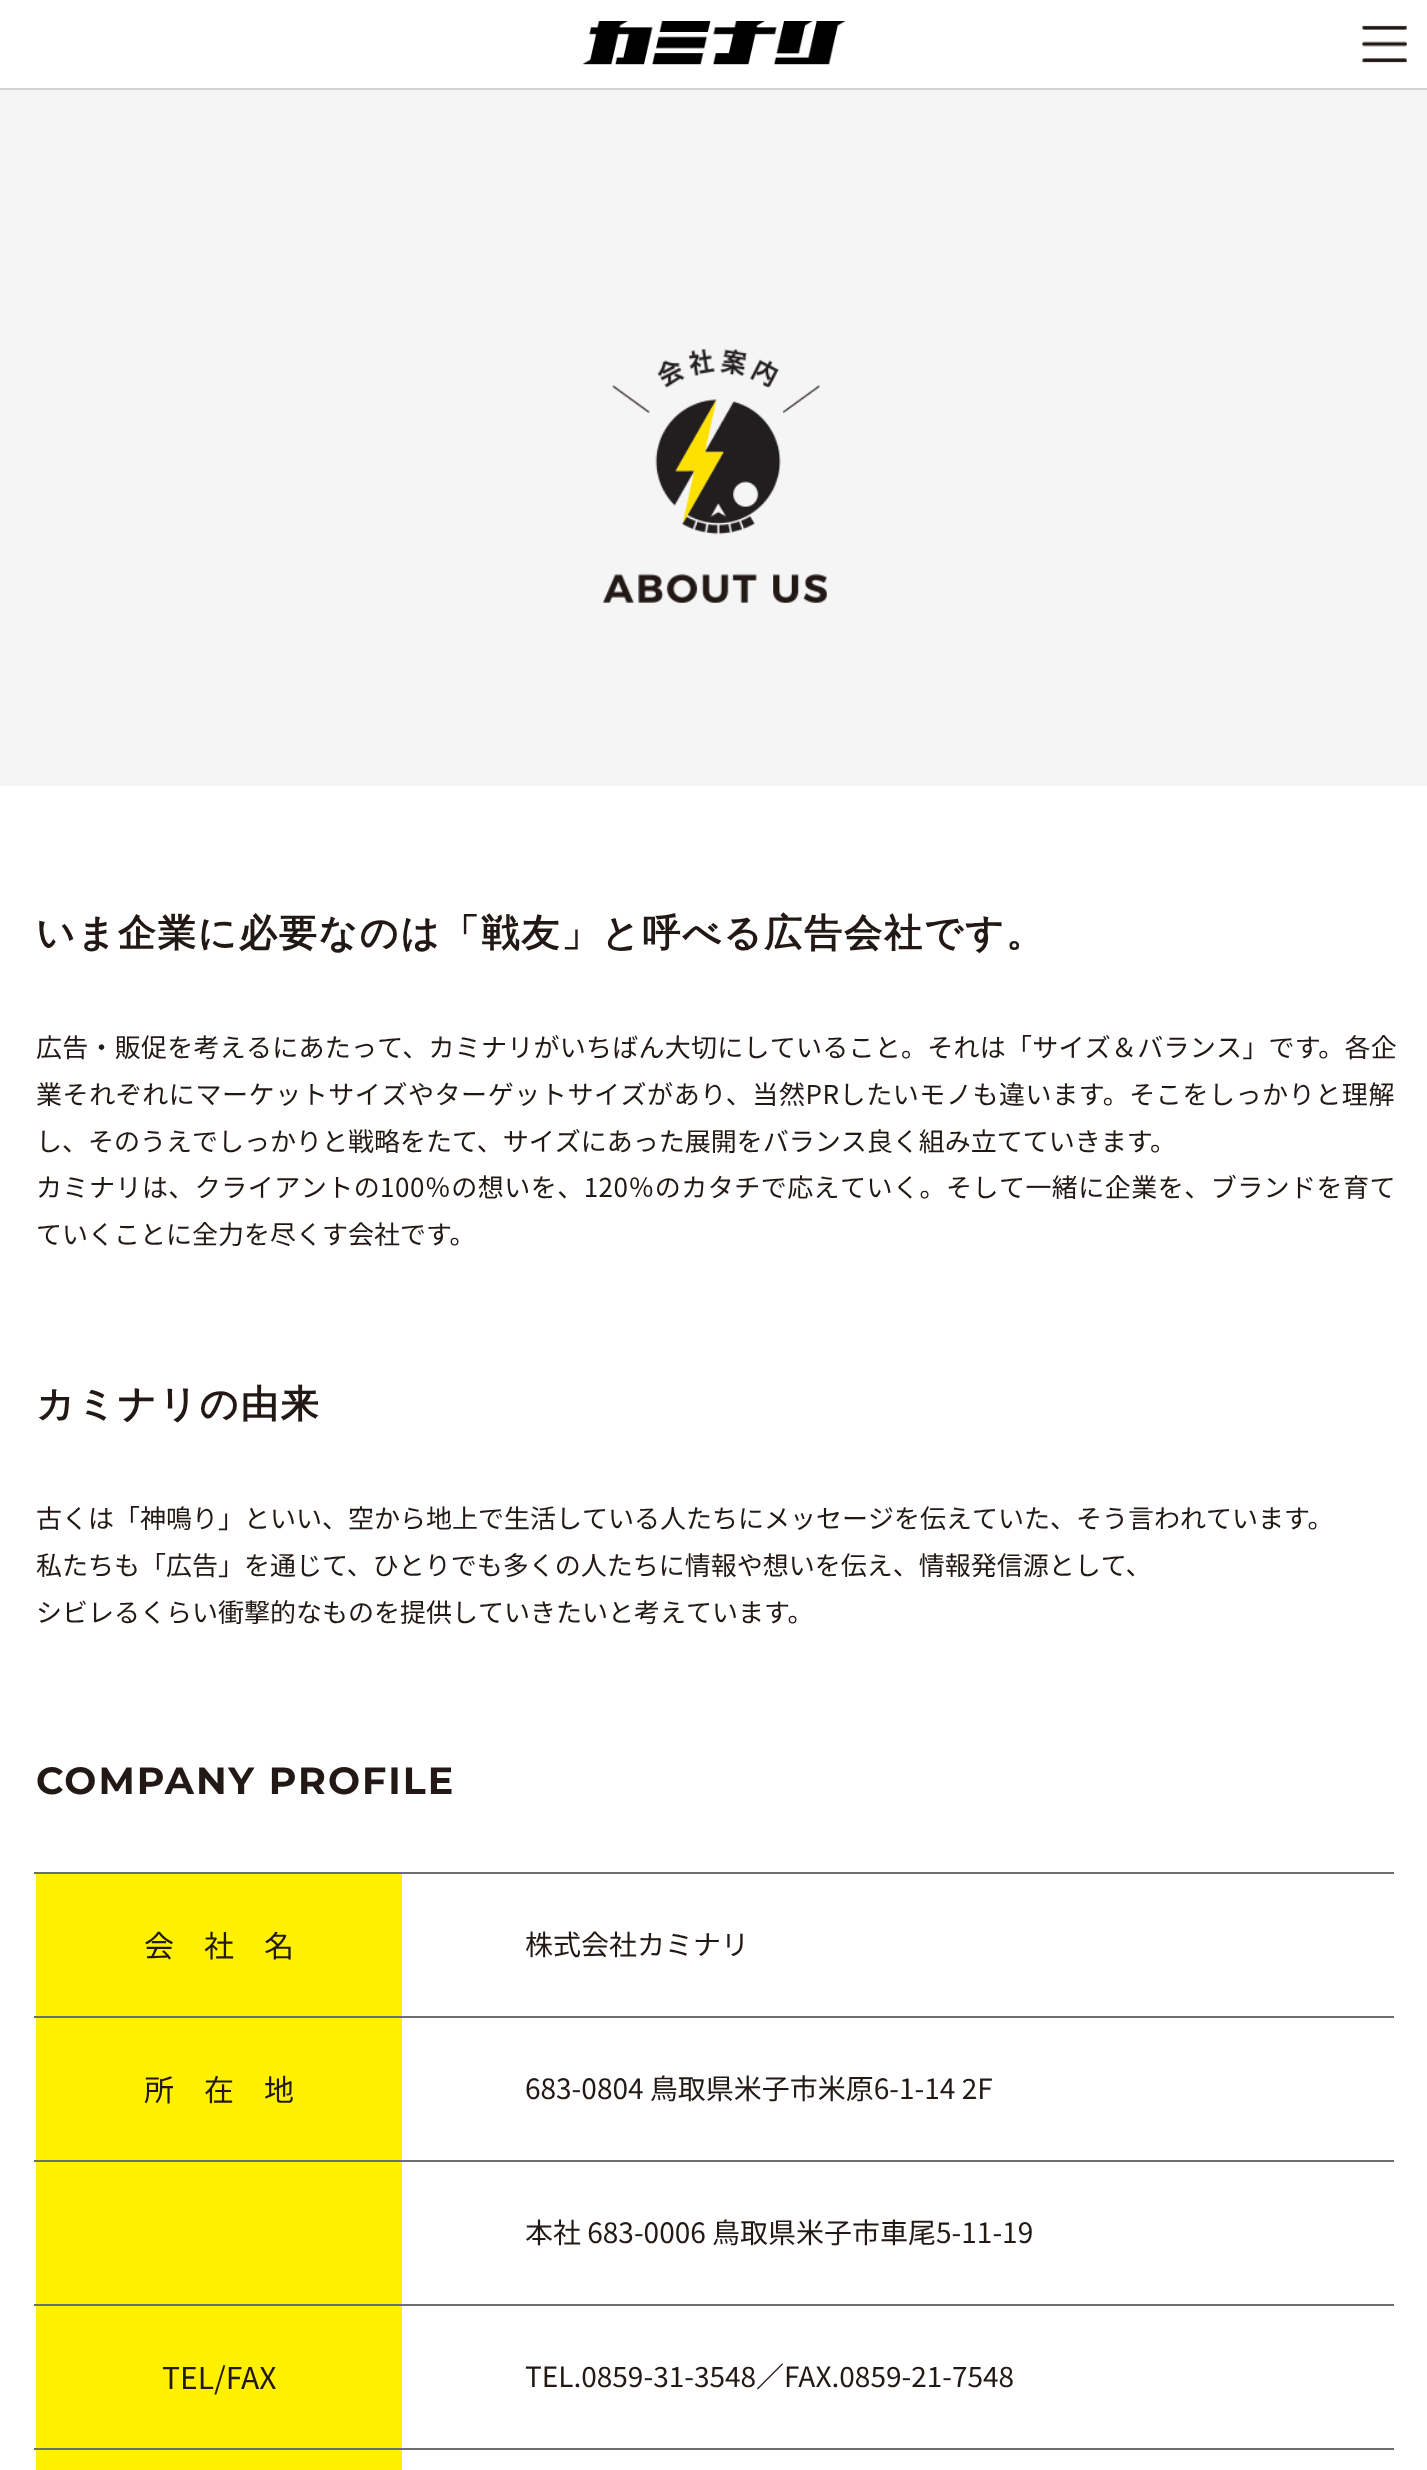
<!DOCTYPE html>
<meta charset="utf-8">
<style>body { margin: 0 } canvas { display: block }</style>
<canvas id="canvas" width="1427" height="2470"></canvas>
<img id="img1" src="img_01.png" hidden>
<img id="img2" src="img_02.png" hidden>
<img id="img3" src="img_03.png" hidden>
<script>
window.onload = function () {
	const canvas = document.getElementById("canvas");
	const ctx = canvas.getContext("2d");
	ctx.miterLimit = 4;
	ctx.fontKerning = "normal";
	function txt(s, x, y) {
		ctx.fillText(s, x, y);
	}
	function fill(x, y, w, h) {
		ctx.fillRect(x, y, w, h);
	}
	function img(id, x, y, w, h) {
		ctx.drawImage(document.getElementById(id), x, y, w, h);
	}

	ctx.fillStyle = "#FFFFFF";
	fill(0, 0, 1427, 2470);
	ctx.fillStyle = "#D0D2D3";
	fill(0, 88, 1427, 2);
	img("img1", 583, 21, 263, 44);
	img("img2", 1362, 25, 45, 38);
	ctx.fillStyle = "#F5F5F5";
	fill(0, 90, 1427, 696);
	img("img3", 603, 349, 224, 254);
	ctx.fillStyle = "#FFF100";
	fill(36, 1874, 366, 142);
	ctx.fillStyle = "#6C6E70";
	fill(34, 1872, 1360, 2);
	ctx.fillStyle = "#FFF100";
	fill(36, 2018, 366, 142);
	ctx.fillStyle = "#6C6E70";
	fill(34, 2016, 1360, 2);
	ctx.fillStyle = "#FFF100";
	fill(36, 2162, 366, 142);
	ctx.fillStyle = "#6C6E70";
	fill(34, 2160, 1360, 2);
	ctx.fillStyle = "#FFF100";
	fill(36, 2306, 366, 142);
	ctx.fillStyle = "#6C6E70";
	fill(34, 2304, 1360, 2);
	fill(34, 2448, 1360, 2);
	ctx.fillStyle = "#FFF100";
	fill(36, 2450, 366, 20);
	ctx.letterSpacing = "2px";
	ctx.font = "bold 38px WenQuanYi Zen Hei";
	ctx.fillStyle = "#221815";
	txt("いま企業に必要なのは「戦友」と呼べる広告会社です。", 36, 946);
	ctx.letterSpacing = "0.25px";
	ctx.font = "26px Noto Sans CJK JP";
	txt("広告・販促を考えるにあたって、カミナリがいちばん大切にしていること。それは「サイズ＆バランス」です。各企", 36, 1057);
	ctx.letterSpacing = "0.57px";
	txt("業それぞれにマーケットサイズやターゲットサイズがあり、当然PRしたいモノも違います。そこをしっかりと理解", 36, 1104);
	ctx.letterSpacing = "0px";
	txt("し、そのうえでしっかりと戦略をたて、サイズにあった展開をバランス良く組み立てていきます。", 36, 1151);
	ctx.letterSpacing = "0.47px";
	txt("カミナリは、クライアントの100％の想いを、120％のカタチで応えていく。そして一緒に企業を、ブランドを育て", 36, 1197);
	ctx.letterSpacing = "0px";
	txt("ていくことに全力を尽くす会社です。", 36, 1244);
	ctx.letterSpacing = "2px";
	ctx.font = "bold 38px WenQuanYi Zen Hei";
	txt("カミナリの由来", 36, 1417);
	ctx.letterSpacing = "0px";
	ctx.font = "26px Noto Sans CJK JP";
	txt("古くは「神鳴り」といい、空から地上で生活している人たちにメッセージを伝えていた、そう言われています。", 36, 1528);
	txt("私たちも「広告」を通じて、ひとりでも多くの人たちに情報や想いを伝え、情報発信源として、", 36, 1575);
	txt("シビレるくらい衝撃的なものを提供していきたいと考えています。", 36, 1622);
	ctx.letterSpacing = "2px";
	ctx.font = "bold 38px Montserrat";
	txt("COMPANY PROFILE", 36, 1794);
	ctx.letterSpacing = "0px";
	ctx.font = "30px Noto Sans CJK JP";
	txt("会　社　名", 144, 1957);
	ctx.font = "28px Noto Sans CJK JP";
	txt("株式会社カミナリ", 525, 1955);
	ctx.font = "30px Noto Sans CJK JP";
	txt("所　在　地", 144, 2101);
	ctx.font = "28px Noto Sans CJK JP";
	txt("683-0804 鳥取県米子市米原6-1-14 2F", 525, 2099);
	txt("本社 683-0006 鳥取県米子市車尾5-11-19", 525, 2243);
	ctx.font = "30px Noto Sans CJK JP";
	txt("TEL/FAX", 162, 2389);
	ctx.font = "28px Noto Sans CJK JP";
	txt("TEL.0859-31-3548／FAX.0859-21-7548", 525, 2387);
};
</script>
